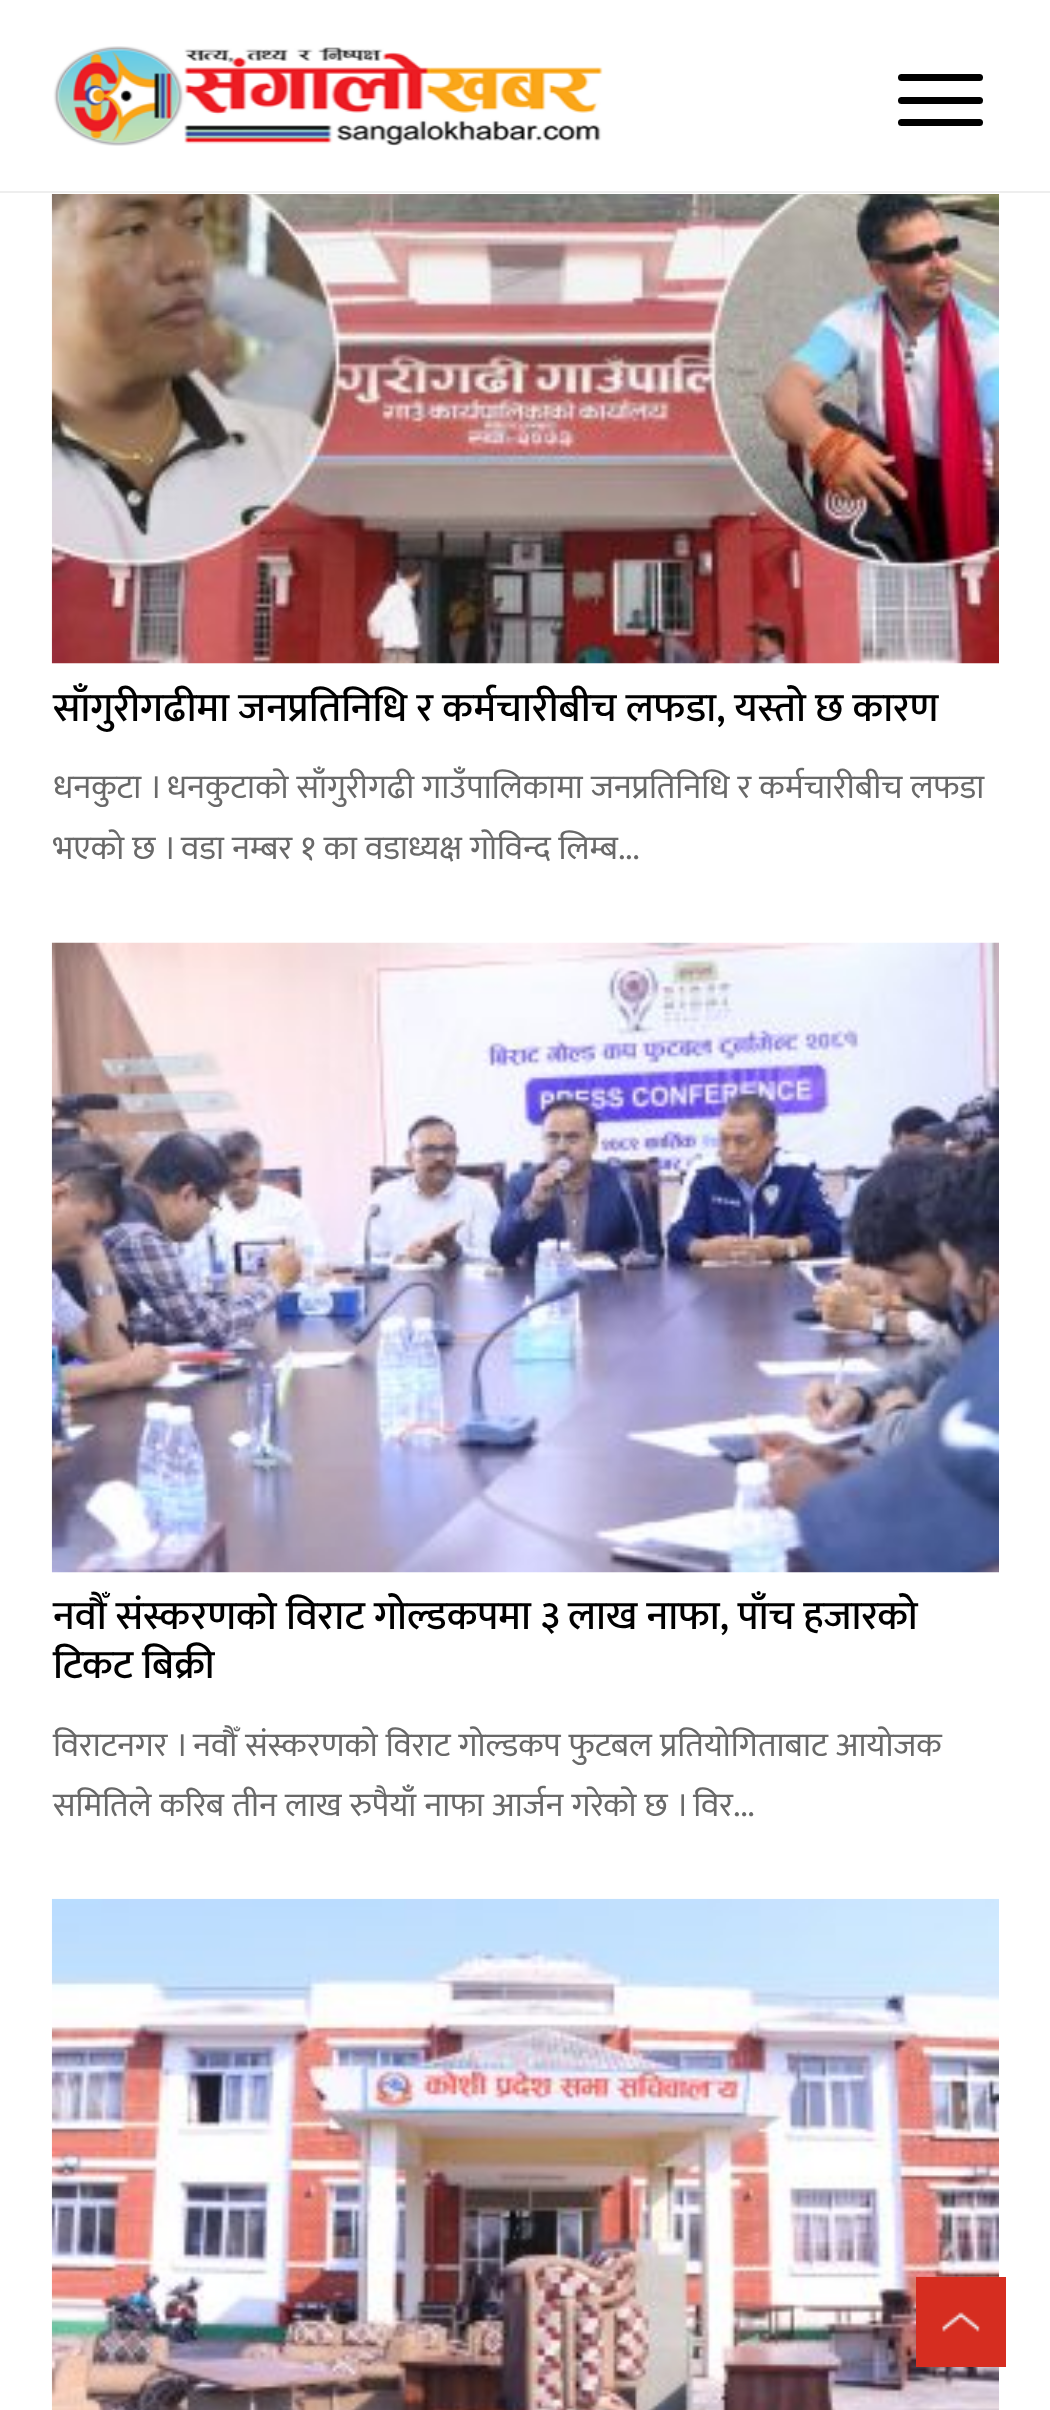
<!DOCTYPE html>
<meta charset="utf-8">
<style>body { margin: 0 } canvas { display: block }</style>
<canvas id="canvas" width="1050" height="2410"></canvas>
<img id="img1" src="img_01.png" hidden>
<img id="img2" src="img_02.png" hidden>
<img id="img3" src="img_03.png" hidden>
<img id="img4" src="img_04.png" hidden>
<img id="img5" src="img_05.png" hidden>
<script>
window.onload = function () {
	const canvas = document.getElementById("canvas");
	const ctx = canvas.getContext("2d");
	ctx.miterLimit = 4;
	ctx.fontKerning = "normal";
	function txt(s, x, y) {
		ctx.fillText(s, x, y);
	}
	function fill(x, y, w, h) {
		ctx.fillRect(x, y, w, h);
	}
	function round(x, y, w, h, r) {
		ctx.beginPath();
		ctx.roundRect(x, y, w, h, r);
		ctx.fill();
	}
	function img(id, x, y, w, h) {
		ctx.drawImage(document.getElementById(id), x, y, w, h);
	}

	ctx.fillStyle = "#FFFFFF";
	fill(0, 0, 1050, 2410);
	ctx.fillStyle = "#EEEEEE";
	fill(0, 191, 1050, 2);
	img("img1", 53, 46, 550, 100);
	ctx.fillStyle = "#000000";
	round(898, 74, 85, 7, 3.5);
	round(898, 119, 85, 7, 3.5);
	round(898, 97, 85, 7, 3.5);
	img("img2", 51, 194, 948, 470);
	img("img3", 51, 942, 948, 631);
	img("img4", 51, 1898, 948, 512);
	ctx.fillStyle = "#D62D20";
	fill(916, 2277, 90, 90);
	img("img5", 942, 2312, 38, 20);
	ctx.font = "500 40.5px Ek Mukta";
	ctx.fillStyle = "#000000";
	txt("साँगुरीगढीमा जनप्रतिनिधि र कर्मचारीबीच लफडा, यस्तो छ कारण", 53, 721);
	ctx.wordSpacing = "0.5px";
	ctx.font = "33.75px Ek Mukta";
	ctx.fillStyle = "#696969";
	txt("धनकुटा । धनकुटाको साँगुरीगढी गाउँपालिकामा जनप्रतिनिधि र कर्मचारीबीच लफडा", 53, 798);
	txt("भएको छ । वडा नम्बर १ का वडाध्यक्ष गोविन्द लिम्ब...", 53, 859);
	ctx.wordSpacing = "0px";
	ctx.font = "500 40.5px Ek Mukta";
	ctx.fillStyle = "#000000";
	txt("नवौँ संस्करणको विराट गोल्डकपमा ३ लाख नाफा, पाँच हजारको", 53, 1629);
	txt("टिकट बिक्री", 53, 1678);
	ctx.wordSpacing = "0.5px";
	ctx.font = "33.75px Ek Mukta";
	ctx.fillStyle = "#696969";
	txt("विराटनगर । नवौँ संस्करणको विराट गोल्डकप फुटबल प्रतियोगिताबाट आयोजक", 53, 1756);
	txt("समितिले करिब तीन लाख रुपैयाँ नाफा आर्जन गरेको छ । विर...", 53, 1816);
};
</script>
